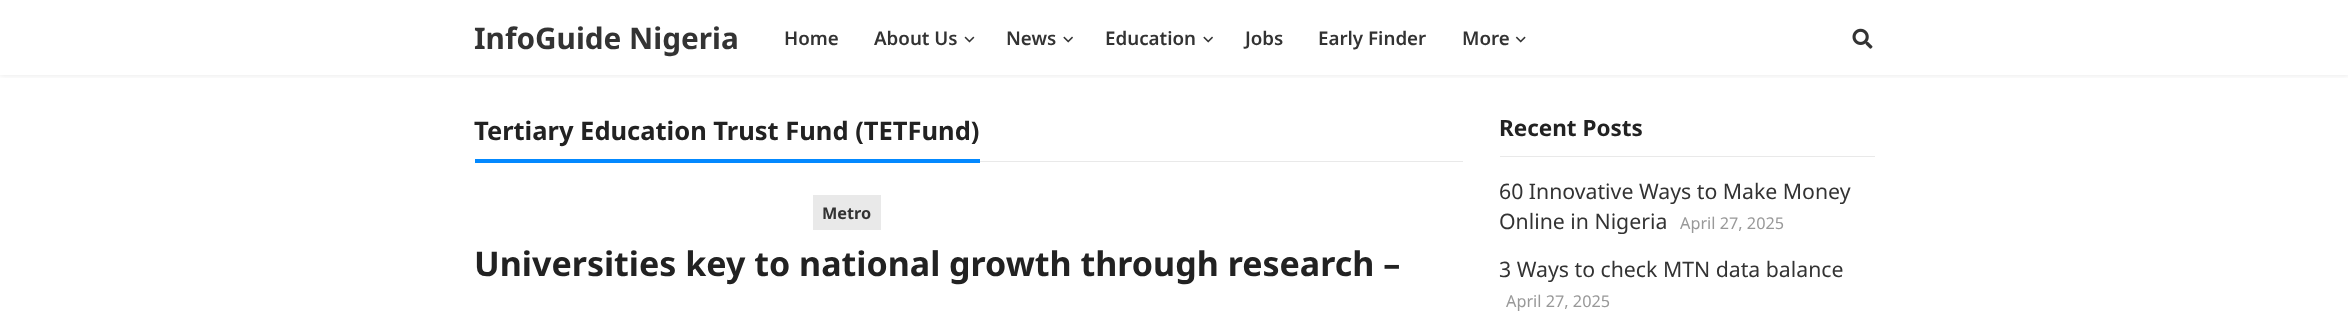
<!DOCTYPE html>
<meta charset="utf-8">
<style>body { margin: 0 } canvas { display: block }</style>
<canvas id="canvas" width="2348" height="312"></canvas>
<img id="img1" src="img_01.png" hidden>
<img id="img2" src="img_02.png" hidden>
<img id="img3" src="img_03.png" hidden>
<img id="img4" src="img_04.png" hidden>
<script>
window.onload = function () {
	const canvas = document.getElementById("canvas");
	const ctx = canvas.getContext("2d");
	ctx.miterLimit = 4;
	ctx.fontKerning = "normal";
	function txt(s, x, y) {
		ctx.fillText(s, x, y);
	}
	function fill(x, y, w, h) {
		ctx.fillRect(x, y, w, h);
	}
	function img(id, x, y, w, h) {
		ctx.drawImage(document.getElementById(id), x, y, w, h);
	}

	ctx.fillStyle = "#FFFFFF";
	fill(0, 0, 2348, 312);
	ctx.save();
	ctx.beginPath();
	ctx.rect(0, 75, 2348, 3);
	ctx.clip();
	ctx.fillStyle = "rgba(0, 0, 0, 0.1)";
	ctx.filter = "blur(3px)";
	ctx.beginPath();
	ctx.rect(0, 0, 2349, 75);
	ctx.fill();
	ctx.filter = "none";
	ctx.restore();
	img("img1", 964, 36, 11, 7);
	img("img2", 1063, 36, 10, 7);
	img("img2", 1203, 36, 10, 7);
	img("img3", 1515, 36, 11, 7);
	img("img4", 1852, 28, 21, 21);
	ctx.fillStyle = "#E9E9E9";
	fill(980, 161, 483, 1);
	ctx.fillStyle = "#0389FF";
	fill(475, 159, 505, 4);
	ctx.fillStyle = "#E9E9E9";
	fill(813, 195, 68, 35);
	fill(1500, 156, 375, 1);
	ctx.font = "bold 29.75px Noto Sans";
	ctx.fillStyle = "#333333";
	txt("InfoGuide Nigeria", 474, 49);
	ctx.font = "600 18.75px Noto Sans";
	txt("Home", 784, 45);
	txt("About Us", 874, 45);
	txt("News", 1006, 45);
	txt("Education", 1105, 45);
	txt("Jobs", 1245, 45);
	txt("Early Finder", 1318, 45);
	txt("More", 1462, 45);
	ctx.font = "bold 25.5px Noto Sans";
	ctx.fillStyle = "#222222";
	txt("Tertiary Education Trust Fund (TETFund)", 474, 140);
	ctx.font = "bold 16.25px Noto Sans";
	ctx.fillStyle = "#333333";
	txt("Metro", 822, 219);
	ctx.font = "bold 34px Noto Sans";
	ctx.fillStyle = "#222222";
	txt("Universities key to national growth through research –", 474, 276);
	ctx.font = "bold 22.5px Noto Sans";
	txt("Recent Posts", 1499, 136);
	ctx.font = "21.25px Noto Sans";
	ctx.fillStyle = "#333333";
	txt("60 Innovative Ways to Make Money", 1499, 199);
	txt("Online in Nigeria", 1499, 229);
	ctx.font = "16.25px Noto Sans";
	ctx.fillStyle = "#999999";
	txt("April 27, 2025", 1680, 229);
	ctx.font = "21.25px Noto Sans";
	ctx.fillStyle = "#333333";
	txt("3 Ways to check MTN data balance", 1499, 277);
	ctx.font = "16.25px Noto Sans";
	ctx.fillStyle = "#999999";
	txt("April 27, 2025", 1506, 307);
};
</script>
